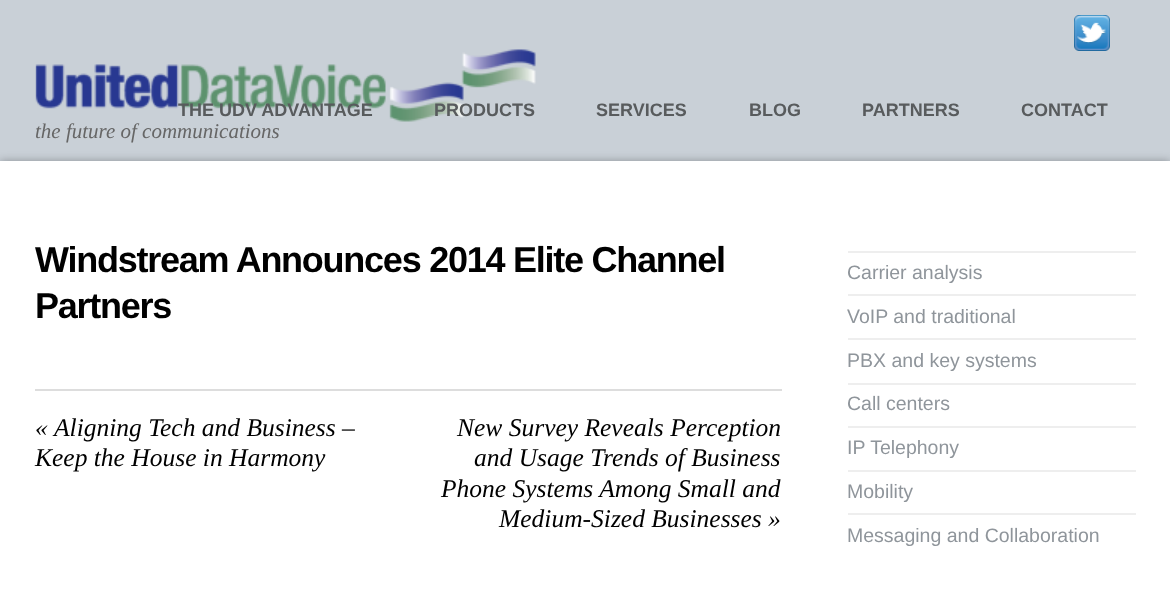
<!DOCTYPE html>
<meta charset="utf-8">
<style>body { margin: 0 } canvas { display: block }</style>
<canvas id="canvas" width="1170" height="614"></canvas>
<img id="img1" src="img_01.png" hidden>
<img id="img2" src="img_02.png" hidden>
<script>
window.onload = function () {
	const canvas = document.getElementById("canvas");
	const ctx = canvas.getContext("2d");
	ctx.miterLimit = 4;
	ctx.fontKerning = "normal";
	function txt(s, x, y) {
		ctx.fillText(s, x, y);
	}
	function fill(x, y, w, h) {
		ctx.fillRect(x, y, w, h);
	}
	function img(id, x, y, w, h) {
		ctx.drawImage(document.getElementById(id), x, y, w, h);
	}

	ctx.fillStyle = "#C9D0D7";
	fill(0, 0, 1170, 614);
	img("img1", 1074, 15, 36, 36);
	img("img2", 35, 49, 501, 73);
	ctx.fillStyle = "rgba(0, 0, 0, 0.3)";
	ctx.filter = "blur(4.5px)";
	ctx.beginPath();
	ctx.rect(0, 161, 1170, 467);
	ctx.fill();
	ctx.filter = "none";
	ctx.fillStyle = "#FFFFFF";
	fill(0, 161, 1170, 453);
	ctx.fillStyle = "#DDDDDD";
	fill(35, 389, 747, 2);
	ctx.fillStyle = "#EEEEEE";
	fill(848, 251, 288, 2);
	fill(848, 294, 288, 2);
	fill(848, 338, 288, 2);
	fill(848, 383, 288, 2);
	fill(848, 426, 288, 2);
	fill(848, 470, 288, 2);
	fill(848, 513, 288, 2);
	ctx.font = "bold 18px Liberation Sans";
	ctx.fillStyle = "#585B5D";
	txt("THE UDV ADVANTAGE", 178, 116);
	txt("PRODUCTS", 434, 116);
	txt("SERVICES", 596, 116);
	txt("BLOG", 749, 116);
	txt("PARTNERS", 862, 116);
	txt("CONTACT", 1021, 116);
	ctx.font = "italic 21px Liberation Serif";
	ctx.fillStyle = "#666666";
	txt("the future of communications", 35, 138);
	ctx.letterSpacing = "-1.25px";
	ctx.font = "bold 36px Liberation Sans";
	ctx.fillStyle = "#000000";
	txt("Windstream Announces 2014 Elite Channel", 35, 272);
	txt("Partners", 35, 318);
	ctx.letterSpacing = "0px";
	ctx.font = "italic 25.5px Liberation Serif";
	txt("«", 35, 436);
	txt("Aligning Tech and Business –", 54, 436);
	txt("Keep the House in Harmony", 35, 466);
	txt("New Survey Reveals Perception", 457, 436);
	txt("and Usage Trends of Business", 474, 466);
	txt("Phone Systems Among Small and", 441, 497);
	txt("Medium-Sized Businesses »", 499, 527);
	ctx.font = "19.5px Liberation Sans";
	ctx.fillStyle = "#8F959B";
	txt("Carrier analysis", 847, 279);
	txt("VoIP and traditional", 847, 323);
	txt("PBX and key systems", 847, 367);
	txt("Call centers", 847, 410);
	txt("IP Telephony", 847, 454);
	txt("Mobility", 847, 498);
	txt("Messaging and Collaboration", 847, 542);
};
</script>
